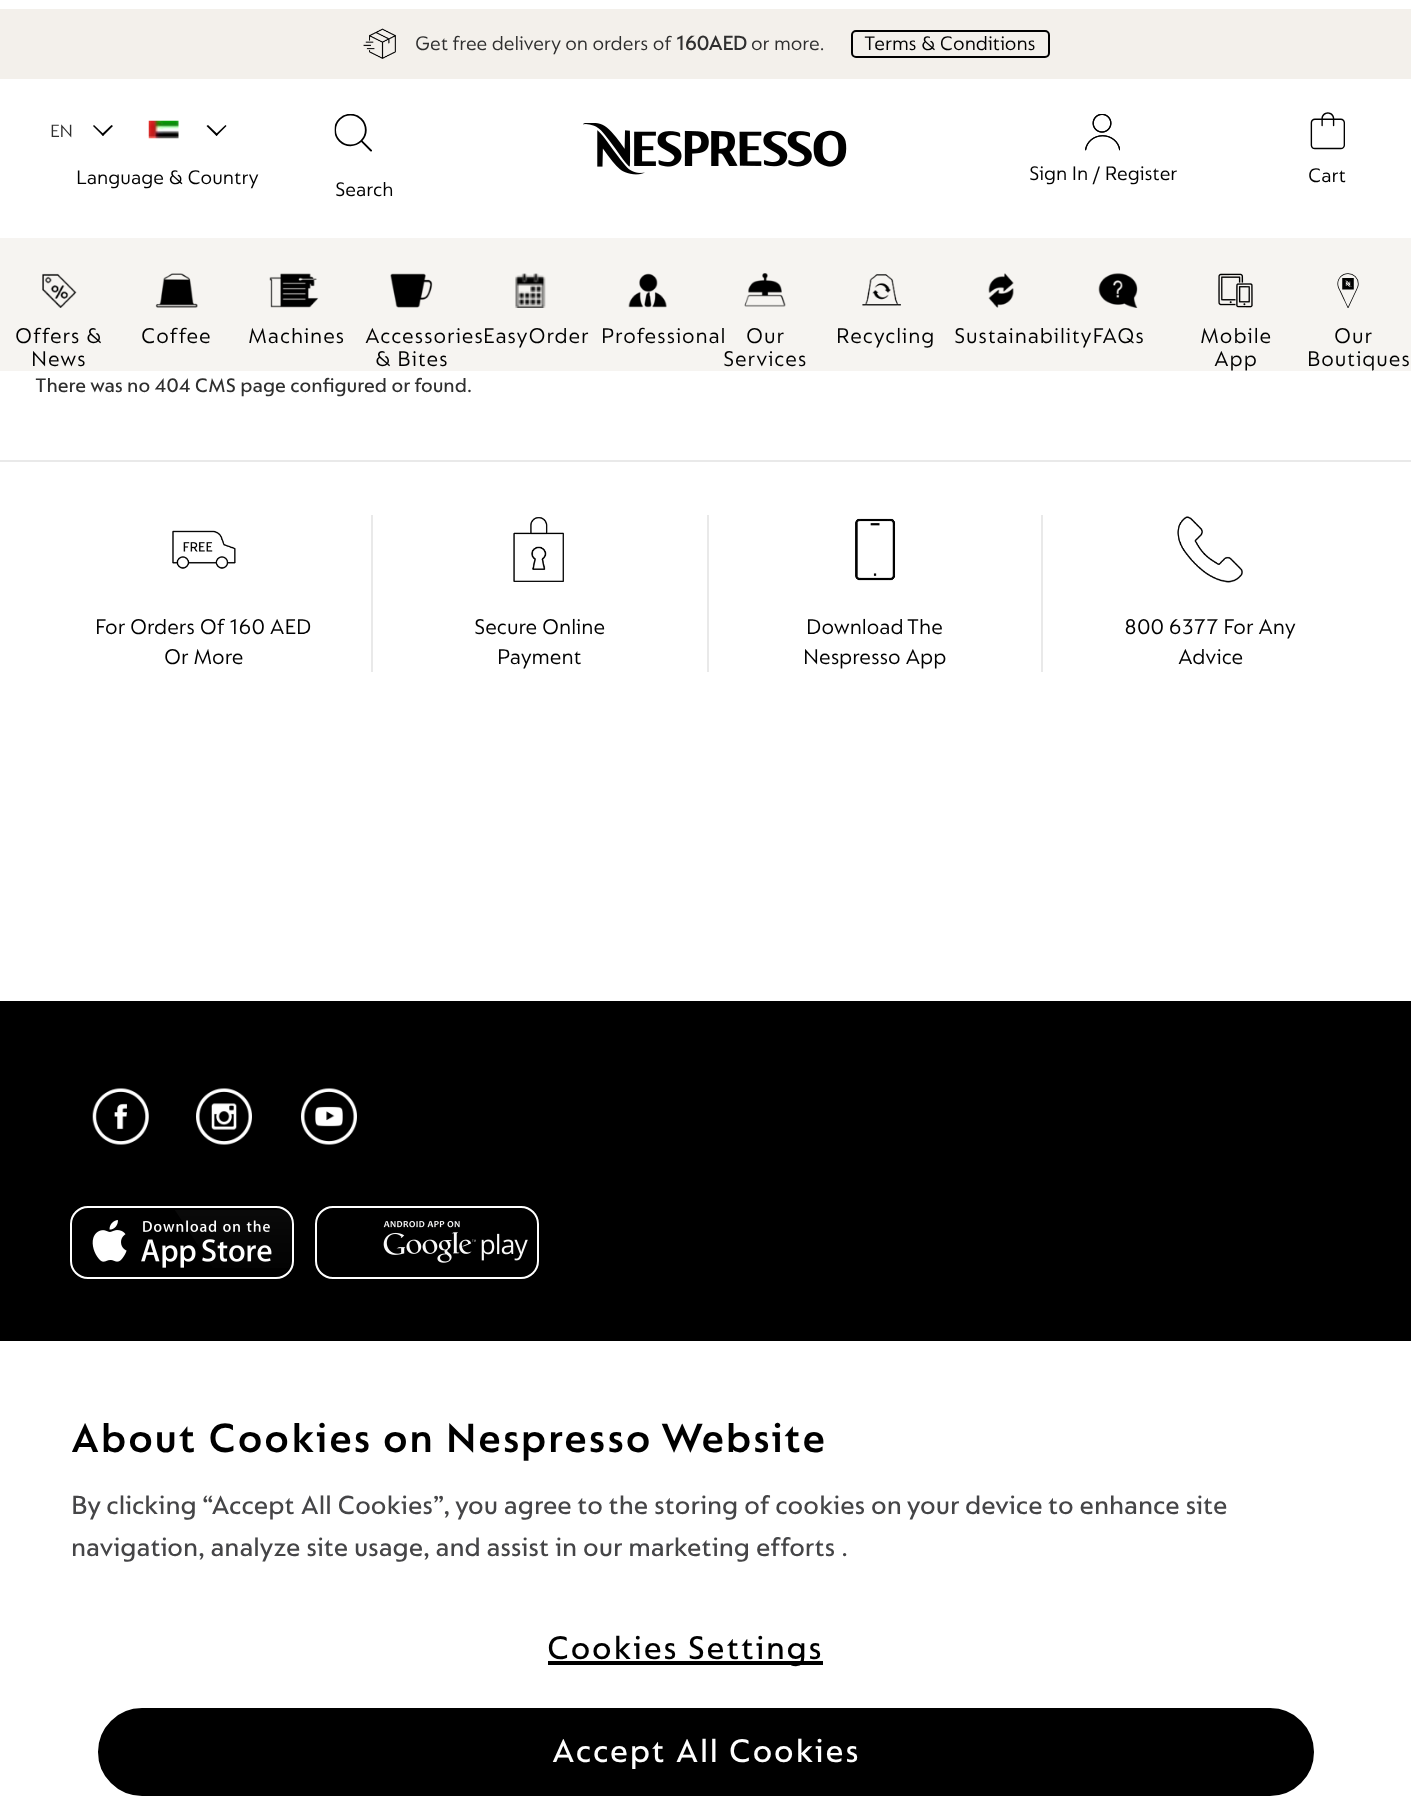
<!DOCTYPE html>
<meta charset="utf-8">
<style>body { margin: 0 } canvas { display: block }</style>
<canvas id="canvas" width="1411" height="1812"></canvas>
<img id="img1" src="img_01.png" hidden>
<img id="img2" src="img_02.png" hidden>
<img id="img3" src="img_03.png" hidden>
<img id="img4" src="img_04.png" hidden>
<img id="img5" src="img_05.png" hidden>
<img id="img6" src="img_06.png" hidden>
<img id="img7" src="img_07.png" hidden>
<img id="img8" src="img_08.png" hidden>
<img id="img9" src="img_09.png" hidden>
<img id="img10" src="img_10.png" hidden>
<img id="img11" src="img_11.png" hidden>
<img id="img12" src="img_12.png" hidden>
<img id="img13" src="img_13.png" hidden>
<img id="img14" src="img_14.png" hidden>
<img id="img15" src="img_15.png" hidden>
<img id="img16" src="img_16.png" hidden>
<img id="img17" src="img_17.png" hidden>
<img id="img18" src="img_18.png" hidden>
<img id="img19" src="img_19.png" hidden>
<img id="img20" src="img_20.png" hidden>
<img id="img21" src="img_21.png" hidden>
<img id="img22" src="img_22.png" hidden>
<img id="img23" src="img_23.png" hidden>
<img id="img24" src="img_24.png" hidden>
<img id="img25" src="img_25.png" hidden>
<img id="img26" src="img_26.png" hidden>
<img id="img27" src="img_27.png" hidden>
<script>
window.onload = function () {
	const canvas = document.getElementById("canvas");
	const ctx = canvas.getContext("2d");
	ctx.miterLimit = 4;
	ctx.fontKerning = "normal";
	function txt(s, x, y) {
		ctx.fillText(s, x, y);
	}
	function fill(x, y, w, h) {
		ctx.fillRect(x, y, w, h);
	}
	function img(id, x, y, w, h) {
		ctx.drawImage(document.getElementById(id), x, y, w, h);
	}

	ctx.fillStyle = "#FFFFFF";
	fill(0, 0, 1411, 1812);
	ctx.fillStyle = "#F3F0EB";
	fill(0, 9, 1411, 70);
	img("img1", 363, 28, 33, 31);
	ctx.beginPath();
	ctx.roundRect(852, 31, 197, 26, 4);
	ctx.strokeStyle = "#000000";
	ctx.lineWidth = 2;
	ctx.stroke();
	ctx.fillStyle = "#000000";
	ctx.beginPath();
	ctx.moveTo(111.5, 125);
	ctx.lineTo(113, 126);
	ctx.lineTo(103, 136);
	ctx.lineTo(101.5, 134.5);
	ctx.closePath();
	ctx.fill();
	ctx.beginPath();
	ctx.moveTo(94, 125);
	ctx.lineTo(104, 134.5);
	ctx.lineTo(103, 136);
	ctx.lineTo(93, 126);
	ctx.closePath();
	ctx.fill();
	img("img2", 148, 120, 31, 19);
	ctx.beginPath();
	ctx.moveTo(225.5, 125);
	ctx.lineTo(226.5, 126);
	ctx.lineTo(216.5, 136);
	ctx.lineTo(215.5, 134.5);
	ctx.closePath();
	ctx.fill();
	ctx.beginPath();
	ctx.moveTo(208, 125);
	ctx.lineTo(218, 134.5);
	ctx.lineTo(216.5, 136);
	ctx.lineTo(206.5, 126);
	ctx.closePath();
	ctx.fill();
	img("img3", 583, 123, 264, 52);
	img("img4", 1085, 114, 35, 37);
	img("img5", 1310, 112, 35, 38);
	img("img6", 334, 114, 38, 38);
	ctx.fillStyle = "#F6F4F1";
	fill(0, 238, 1411, 133);
	img("img7", 1098, 273, 40, 35);
	img("img8", 42, 273, 35, 35);
	img("img9", 155, 273, 43, 35);
	img("img10", 269, 273, 50, 35);
	img("img11", 390, 273, 43, 35);
	img("img12", 515, 273, 31, 35);
	img("img13", 628, 273, 39, 35);
	img("img14", 744, 273, 42, 34);
	img("img15", 862, 274, 39, 32);
	img("img16", 988, 273, 26, 35);
	img("img17", 1218, 273, 35, 35);
	img("img18", 1337, 273, 22, 35);
	ctx.fillStyle = "#E9E9E9";
	fill(0, 460, 1411, 2);
	img("img19", 172, 530, 64, 39);
	fill(371, 515, 2, 157);
	img("img20", 513, 517, 51, 65);
	fill(707, 515, 2, 157);
	img("img21", 855, 518, 41, 63);
	fill(1041, 515, 2, 157);
	img("img22", 1177, 516, 66, 67);
	ctx.fillStyle = "#000000";
	fill(0, 1001, 1411, 340);
	img("img23", 92, 1088, 57, 57);
	img("img24", 196, 1088, 56, 57);
	img("img25", 301, 1088, 56, 57);
	img("img26", 92, 1210, 200, 58);
	ctx.beginPath();
	ctx.roundRect(71, 1207, 222, 71, 17);
	ctx.strokeStyle = "#FFFFFF";
	ctx.stroke();
	img("img27", 383, 1221, 145, 42);
	ctx.beginPath();
	ctx.roundRect(316, 1207, 222, 71, 17);
	ctx.stroke();
	fill(548, 1661, 275, 4);
	ctx.beginPath();
	ctx.roundRect(99, 1709, 1214, 86, 43);
	ctx.fill();
	ctx.strokeStyle = "#000000";
	ctx.stroke();
	ctx.font = "21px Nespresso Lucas";
	ctx.fillStyle = "#2F2F2F";
	txt("Get free delivery on orders of", 415, 50);
	ctx.font = "bold 21px Nespresso Lucas";
	txt("160AED", 676, 50);
	ctx.font = "21px Nespresso Lucas";
	txt("or more.", 751, 50);
	ctx.fillStyle = "#000000";
	txt("Terms & Conditions", 864, 50);
	ctx.font = "19px Nespresso Lucas";
	ctx.fillStyle = "#2F2F2F";
	txt("EN", 50, 137);
	ctx.font = "21px Nespresso Lucas";
	ctx.fillStyle = "#000000";
	txt("Language & Country", 76, 184);
	txt("Sign In / Register", 1029, 180);
	txt("Cart", 1308, 182);
	txt("Search", 335, 196);
	ctx.letterSpacing = "0.9px";
	ctx.font = "22.75px Nespresso Lucas";
	txt("Offers &", 15, 343);
	txt("News", 31, 366);
	txt("Coffee", 141, 343);
	txt("Machines", 248, 343);
	txt("Accessories", 365, 343);
	txt("& Bites", 375, 366);
	txt("EasyOrder", 483, 343);
	txt("Professional", 601, 343);
	txt("Our", 746, 343);
	txt("Services", 723, 366);
	txt("Recycling", 836, 343);
	txt("SustainabilityFAQs", 954, 343);
	txt("Mobile", 1200, 343);
	txt("App", 1214, 366);
	txt("Our", 1334, 343);
	txt("Boutiques", 1307, 366);
	ctx.letterSpacing = "0px";
	ctx.font = "500 21px Nespresso Lucas";
	ctx.fillStyle = "#2F2F2F";
	txt("There was no 404 CMS page configured or found.", 35, 392);
	ctx.font = "22.75px Nespresso Lucas";
	ctx.fillStyle = "#000000";
	txt("For Orders Of 160 AED", 95, 634);
	txt("Or More", 164, 664);
	txt("Secure Online", 474, 634);
	txt("Payment", 497, 664);
	txt("Download The", 806, 634);
	txt("Nespresso App", 803, 664);
	txt("800 6377 For Any", 1124, 634);
	txt("Advice", 1178, 664);
	ctx.letterSpacing = "1.75px";
	ctx.font = "600 43.75px Nespresso Lucas";
	txt("About Cookies on Nespresso Website", 71, 1452);
	ctx.letterSpacing = "0px";
	ctx.font = "500 28px Nespresso Lucas";
	ctx.fillStyle = "#454547";
	txt("By clicking “Accept All Cookies”, you agree to the storing of cookies on your device to enhance site", 71, 1514);
	txt("navigation, analyze site usage, and assist in our marketing efforts .", 71, 1556);
	ctx.letterSpacing = "1.75px";
	ctx.font = "500 35px Nespresso Lucas";
	ctx.fillStyle = "#000000";
	txt("Cookies Settings", 547, 1659);
	ctx.fillStyle = "#FFFFFF";
	txt("Accept All Cookies", 552, 1762);
};
</script>
